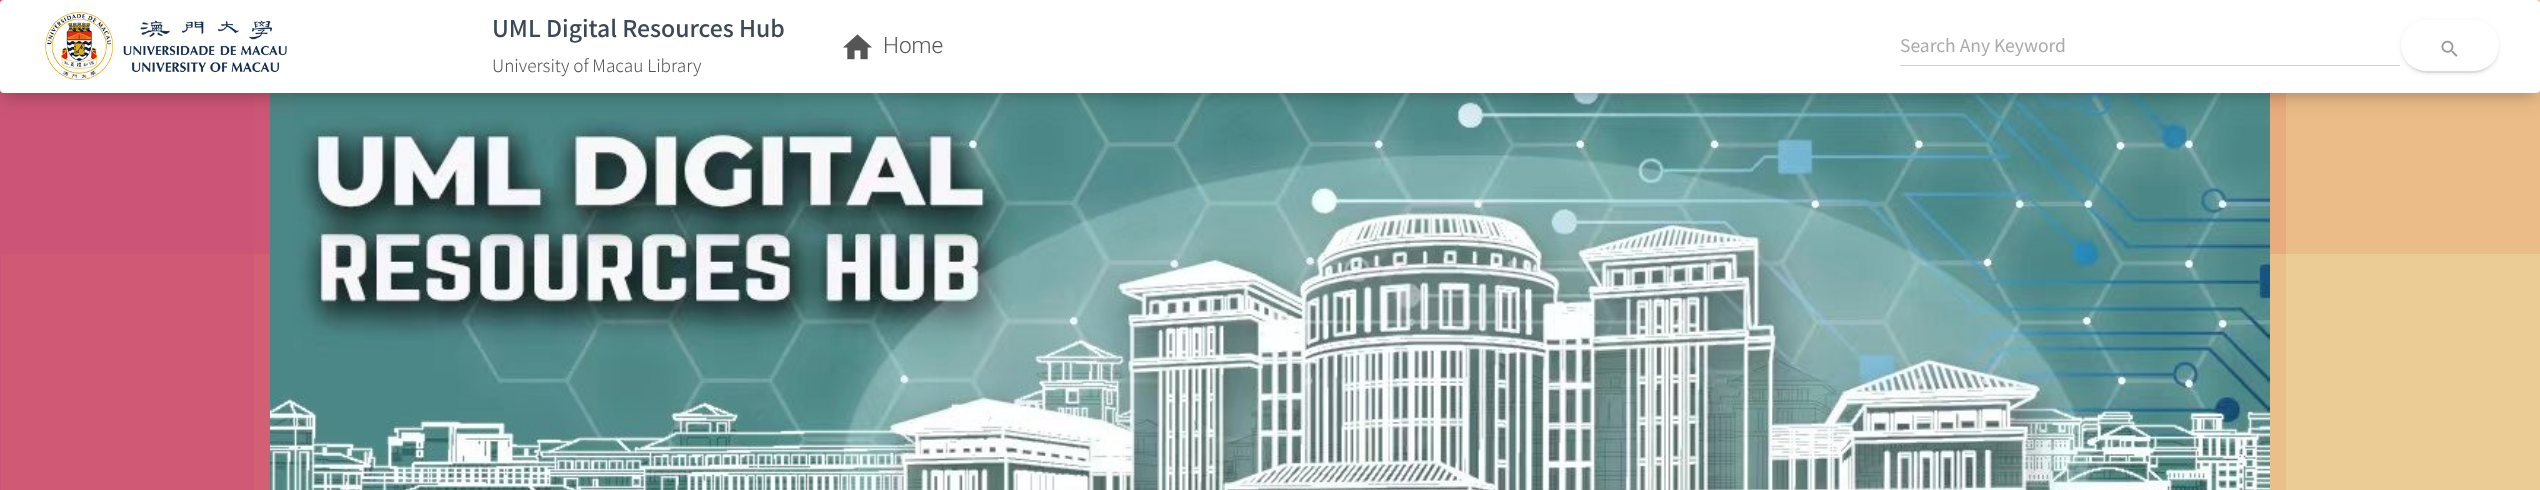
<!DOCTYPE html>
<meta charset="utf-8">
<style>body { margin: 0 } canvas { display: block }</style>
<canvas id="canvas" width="2540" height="490"></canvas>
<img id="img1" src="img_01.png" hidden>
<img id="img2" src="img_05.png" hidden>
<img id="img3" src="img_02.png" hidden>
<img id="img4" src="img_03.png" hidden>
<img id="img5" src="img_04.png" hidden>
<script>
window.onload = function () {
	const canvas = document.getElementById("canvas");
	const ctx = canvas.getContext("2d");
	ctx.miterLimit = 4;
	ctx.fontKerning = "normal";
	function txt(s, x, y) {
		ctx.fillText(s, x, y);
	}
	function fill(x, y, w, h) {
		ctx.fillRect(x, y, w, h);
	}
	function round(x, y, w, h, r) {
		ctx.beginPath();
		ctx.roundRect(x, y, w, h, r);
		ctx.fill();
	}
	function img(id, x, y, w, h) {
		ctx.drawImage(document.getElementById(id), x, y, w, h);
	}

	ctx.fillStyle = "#CC5577";
	fill(0, 0, 2540, 490);
	img("img1", 1, 0, 2539, 490);
	img("img2", 270, 93, 2000, 397);
	ctx.fillStyle = "rgba(0, 0, 0, 0.15)";
	ctx.filter = "blur(6px)";
	ctx.beginPath();
	ctx.rect(6, 15, 2528, 80);
	ctx.fill();
	ctx.filter = "none";
	ctx.fillStyle = "rgba(0, 0, 0, 0.12)";
	ctx.filter = "blur(11px)";
	ctx.beginPath();
	ctx.roundRect(0, 5, 2540, 93, 4);
	ctx.fill();
	ctx.filter = "none";
	ctx.fillStyle = "#FFFFFF";
	round(0, 0, 2540, 93, 4);
	img("img3", 45, 12, 242, 68);
	img("img4", 843, 34, 29, 26);
	ctx.fillStyle = "#D2D2D2";
	fill(1900, 65, 500, 1);
	ctx.fillStyle = "rgba(153, 153, 153, 0.12)";
	ctx.filter = "blur(3px)";
	ctx.beginPath();
	ctx.roundRect(2401, 21, 98, 52, 26);
	ctx.fill();
	ctx.filter = "none";
	ctx.fillStyle = "rgba(153, 153, 153, 0.2)";
	ctx.filter = "blur(0.5px)";
	ctx.beginPath();
	ctx.roundRect(2404, 26, 92, 47, 23.5);
	ctx.fill();
	ctx.filter = "none";
	ctx.fillStyle = "rgba(153, 153, 153, 0.14)";
	ctx.filter = "blur(1px)";
	ctx.beginPath();
	ctx.roundRect(2401, 23, 98, 51, 25.5);
	ctx.fill();
	ctx.filter = "none";
	ctx.fillStyle = "#FFFFFF";
	round(2401, 20, 98, 51, 25.5);
	img("img5", 2441, 40, 17, 17);
	ctx.font = "500 23px Noto Sans TC";
	ctx.fillStyle = "#3C4858";
	txt("UML Digital Resources Hub", 492, 37);
	ctx.font = "300 17.25px Noto Sans TC";
	ctx.fillStyle = "#555555";
	txt("University of Macau Library", 492, 72);
	ctx.font = "300 22.5px Roboto";
	txt("Home", 883, 53);
	ctx.font = "17.5px Noto Sans TC";
	ctx.fillStyle = "#AAAAAA";
	txt("Search Any Keyword", 1900, 52);
};
</script>
